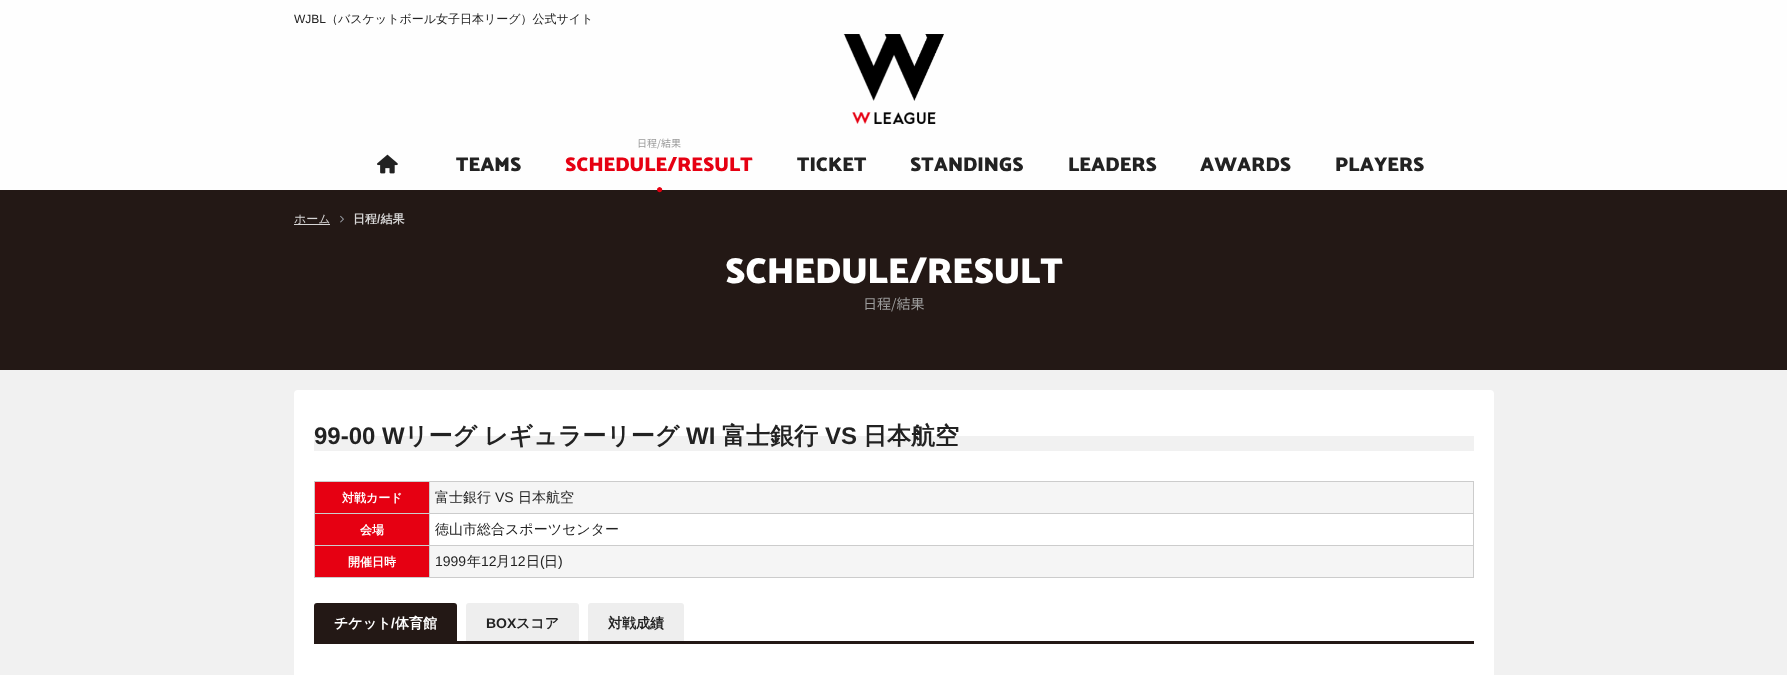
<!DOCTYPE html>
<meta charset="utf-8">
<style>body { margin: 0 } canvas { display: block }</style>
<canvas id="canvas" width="1787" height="675"></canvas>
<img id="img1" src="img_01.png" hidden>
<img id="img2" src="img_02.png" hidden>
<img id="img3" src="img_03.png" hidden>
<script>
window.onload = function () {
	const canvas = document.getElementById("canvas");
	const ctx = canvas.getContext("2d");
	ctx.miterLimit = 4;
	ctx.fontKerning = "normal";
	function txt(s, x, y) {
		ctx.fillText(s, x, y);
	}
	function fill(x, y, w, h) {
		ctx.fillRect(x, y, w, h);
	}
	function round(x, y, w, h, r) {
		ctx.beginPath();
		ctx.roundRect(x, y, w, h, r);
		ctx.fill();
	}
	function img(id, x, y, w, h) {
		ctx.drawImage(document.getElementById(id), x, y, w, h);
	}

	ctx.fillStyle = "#F1F1F1";
	fill(0, 0, 1787, 675);
	ctx.fillStyle = "#FEFEFE";
	fill(0, 0, 1787, 190);
	img("img1", 843, 34, 101, 90);
	img("img2", 377, 154, 21, 20);
	ctx.fillStyle = "#231815";
	fill(0, 190, 1787, 180);
	ctx.fillStyle = "#D6D5D5";
	fill(294, 224, 36, 1);
	img("img3", 340, 215, 4, 8);
	ctx.fillStyle = "#FFFFFF";
	round(294, 390, 1200, 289, 4);
	ctx.fillStyle = "#F1F1F1";
	fill(314, 436, 1160, 15);
	ctx.fillStyle = "#E60012";
	fill(315, 482, 114, 31);
	ctx.fillStyle = "#CCCCCC";
	fill(429, 481, 1045, 1);
	fill(429, 513, 1045, 1);
	fill(429, 545, 1045, 1);
	fill(1473, 545, 1, 33);
	fill(429, 577, 1045, 1);
	fill(429, 545, 1, 33);
	fill(314, 545, 116, 1);
	fill(429, 513, 1, 33);
	fill(314, 513, 116, 1);
	fill(429, 481, 1, 33);
	fill(314, 481, 116, 1);
	fill(314, 577, 116, 1);
	fill(314, 545, 1, 33);
	fill(314, 513, 1, 33);
	fill(314, 481, 1, 33);
	ctx.fillStyle = "#F5F5F5";
	fill(430, 482, 1043, 31);
	ctx.fillStyle = "#CCCCCC";
	fill(1473, 513, 1, 33);
	fill(1473, 481, 1, 33);
	ctx.fillStyle = "#E60012";
	fill(315, 514, 114, 31);
	fill(315, 546, 114, 31);
	ctx.fillStyle = "#F5F5F5";
	fill(430, 546, 1043, 31);
	ctx.fillStyle = "#231815";
	ctx.beginPath();
	ctx.roundRect(314, 603, 143, 41, [3, 3, 0, 0]);
	ctx.fill();
	ctx.fillStyle = "#EEEEEE";
	ctx.beginPath();
	ctx.roundRect(466, 603, 113, 41, [3, 3, 0, 0]);
	ctx.fill();
	ctx.beginPath();
	ctx.roundRect(588, 603, 96, 41, [3, 3, 0, 0]);
	ctx.fill();
	ctx.fillStyle = "#231815";
	fill(457, 641, 1017, 3);
	ctx.font = "12px Liberation Sans";
	ctx.fillStyle = "#222222";
	txt("WJBL", 294, 23);
	ctx.font = "500 12px WenQuanYi Zen Hei";
	txt("（バスケットボール女子日本リーグ）公式サイト", 326, 23);
	ctx.font = "bold 20px Palanquin Dark";
	txt("TEAMS", 456, 171);
	ctx.font = "10px Noto Sans JP";
	ctx.fillStyle = "#9B9B9B";
	txt("日程/結果", 637, 147);
	ctx.font = "bold 20px Palanquin Dark";
	ctx.fillStyle = "#E60012";
	txt("SCHEDULE/RESULT", 565, 171);
	ctx.font = "12px Liberation Sans";
	txt("●", 656, 193);
	ctx.font = "bold 20px Palanquin Dark";
	ctx.fillStyle = "#222222";
	txt("TICKET", 797, 171);
	txt("STANDINGS", 910, 171);
	txt("LEADERS", 1068, 171);
	txt("AWARDS", 1200, 171);
	txt("PLAYERS", 1335, 171);
	ctx.font = "500 12px WenQuanYi Zen Hei";
	ctx.fillStyle = "#D6D5D5";
	txt("ホーム", 294, 223);
	ctx.font = "bold 12px WenQuanYi Zen Hei";
	txt("日程 結果", 353, 223);
	ctx.font = "bold 12px Liberation Sans";
	txt("/", 377, 223);
	ctx.font = "bold 36px Palanquin Dark";
	ctx.fillStyle = "#FFFFFF";
	txt("SCHEDULE/RESULT", 725, 283);
	ctx.font = "14px Noto Sans JP";
	ctx.fillStyle = "#9B9B9B";
	txt("日程/結果", 863, 309);
	ctx.font = "bold 24px Liberation Sans";
	ctx.fillStyle = "#222222";
	txt("99-00 W", 314, 444);
	ctx.font = "bold 24px WenQuanYi Zen Hei";
	txt("リーグ", 404, 444);
	txt("レギュラーリーグ", 484, 444);
	ctx.font = "bold 24px Liberation Sans";
	txt("WI", 686, 444);
	ctx.font = "bold 24px WenQuanYi Zen Hei";
	txt("富士銀行", 722, 444);
	ctx.font = "bold 24px Liberation Sans";
	txt("VS", 825, 444);
	ctx.font = "bold 24px WenQuanYi Zen Hei";
	txt("日本航空", 863, 444);
	ctx.font = "bold 12px WenQuanYi Zen Hei";
	ctx.fillStyle = "#FFFFFF";
	txt("対戦カード", 342, 502);
	ctx.font = "500 14px WenQuanYi Zen Hei";
	ctx.fillStyle = "#222222";
	txt("富士銀行", 435, 502);
	ctx.font = "14px Liberation Sans";
	txt("VS", 495, 502);
	ctx.font = "500 14px WenQuanYi Zen Hei";
	txt("日本航空", 518, 502);
	ctx.font = "bold 12px WenQuanYi Zen Hei";
	ctx.fillStyle = "#FFFFFF";
	txt("会場", 360, 534);
	ctx.font = "500 14px WenQuanYi Zen Hei";
	ctx.fillStyle = "#222222";
	txt("徳山市総合スポーツセンター", 435, 534);
	ctx.font = "bold 12px WenQuanYi Zen Hei";
	ctx.fillStyle = "#FFFFFF";
	txt("開催日時", 348, 566);
	ctx.font = "14px Liberation Sans";
	ctx.fillStyle = "#222222";
	txt("1999", 435, 566);
	ctx.font = "500 14px WenQuanYi Zen Hei";
	txt("年", 467, 566);
	ctx.font = "14px Liberation Sans";
	txt("12", 481, 566);
	ctx.font = "500 14px WenQuanYi Zen Hei";
	txt("月", 496, 566);
	ctx.font = "14px Liberation Sans";
	txt("12", 510, 566);
	ctx.font = "500 14px WenQuanYi Zen Hei";
	txt("日", 526, 566);
	ctx.font = "14px Liberation Sans";
	txt("(", 540, 566);
	ctx.font = "500 14px WenQuanYi Zen Hei";
	txt("日", 544, 566);
	ctx.font = "14px Liberation Sans";
	txt(")", 558, 566);
	ctx.font = "bold 14px WenQuanYi Zen Hei";
	ctx.fillStyle = "#FFFFFF";
	txt("チケット", 334, 628);
	ctx.font = "bold 14px Liberation Sans";
	txt("/", 391, 628);
	ctx.font = "bold 14px WenQuanYi Zen Hei";
	txt("体育館", 395, 628);
	ctx.font = "bold 14px Liberation Sans";
	ctx.fillStyle = "#222222";
	txt("BOX", 486, 628);
	ctx.font = "bold 14px WenQuanYi Zen Hei";
	txt("スコア", 516, 628);
	txt("対戦成績", 608, 628);
};
</script>
